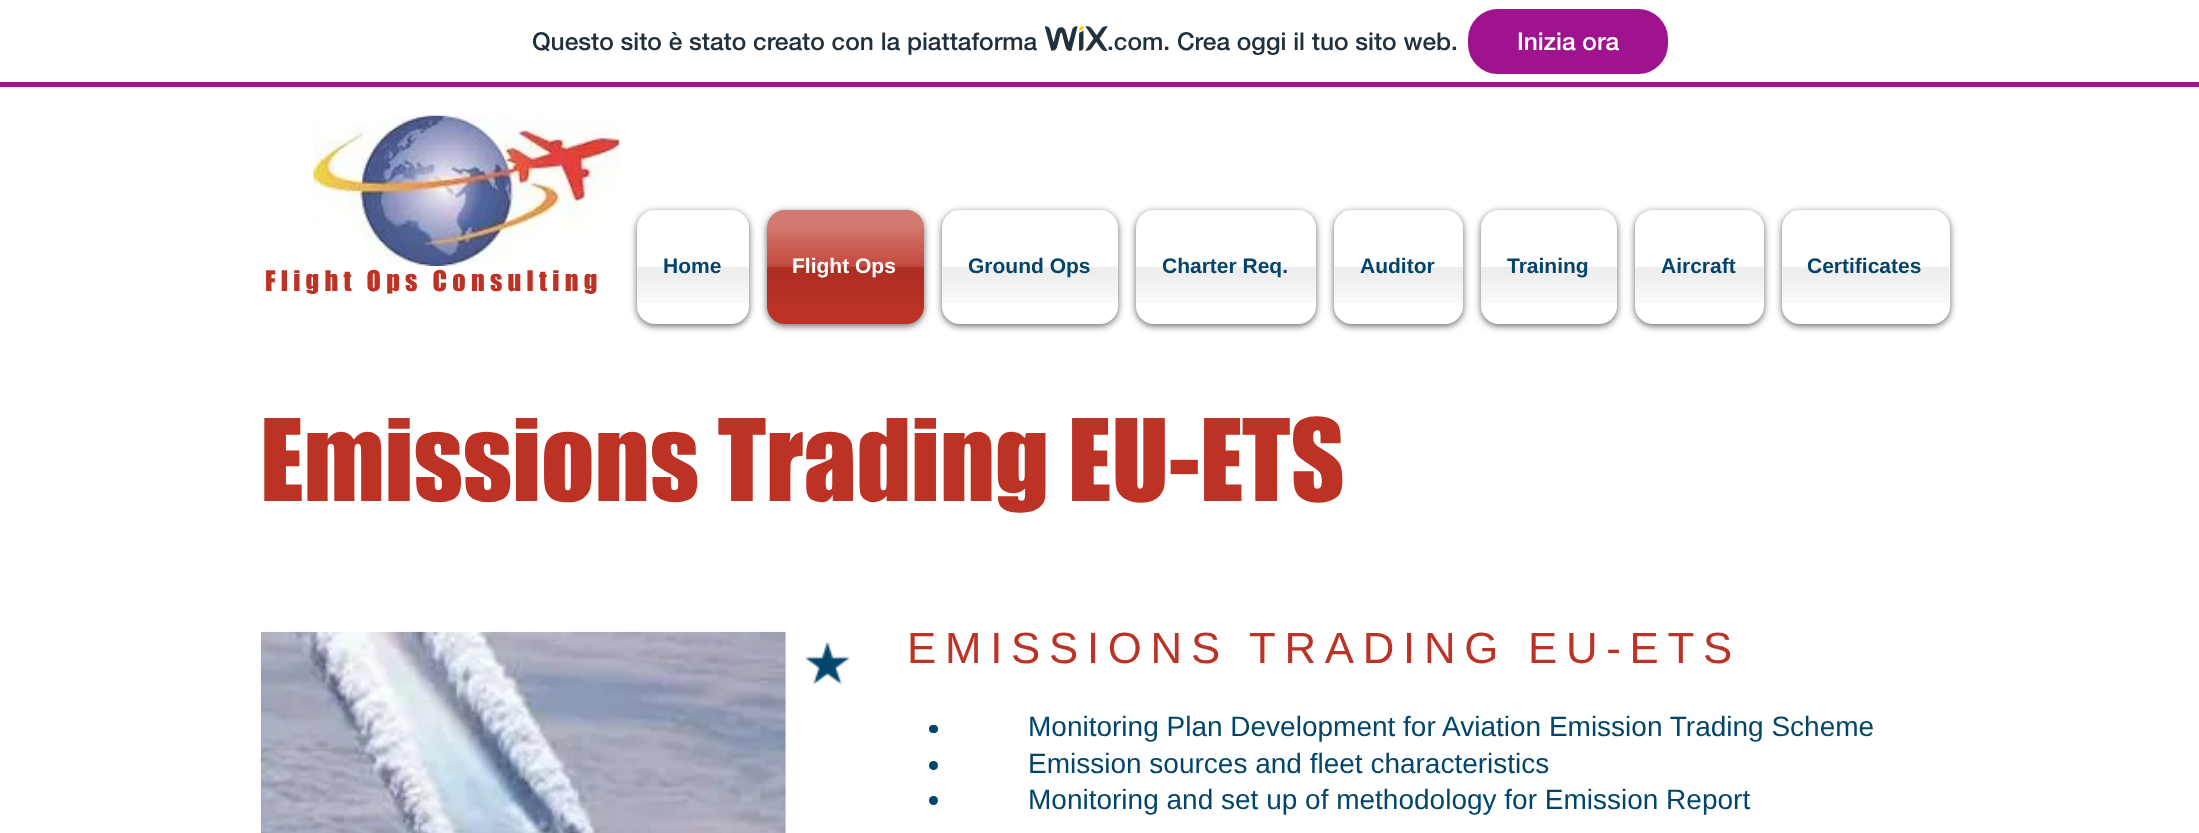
<!DOCTYPE html>
<meta charset="utf-8">
<style>body { margin: 0 } canvas { display: block }</style>
<canvas id="canvas" width="2199" height="833"></canvas>
<img id="img1" src="img_01.png" hidden>
<img id="img2" src="img_02.png" hidden>
<img id="img3" src="img_03.png" hidden>
<img id="img4" src="img_04.png" hidden>
<img id="img5" src="img_05.png" hidden>
<img id="img6" src="img_06.png" hidden>
<img id="img7" src="img_07.png" hidden>
<img id="img8" src="img_08.png" hidden>
<img id="img9" src="img_09.png" hidden>
<img id="img10" src="img_10.png" hidden>
<img id="img11" src="img_11.png" hidden>
<script>
window.onload = function () {
	const canvas = document.getElementById("canvas");
	const ctx = canvas.getContext("2d");
	ctx.miterLimit = 4;
	ctx.fontKerning = "normal";
	function txt(s, x, y) {
		ctx.fillText(s, x, y);
	}
	function fill(x, y, w, h) {
		ctx.fillRect(x, y, w, h);
	}
	function round(x, y, w, h, r) {
		ctx.beginPath();
		ctx.roundRect(x, y, w, h, r);
		ctx.fill();
	}
	function img(id, x, y, w, h) {
		ctx.drawImage(document.getElementById(id), x, y, w, h);
	}

	ctx.fillStyle = "#FFFFFF";
	fill(0, 0, 2199, 833);
	ctx.fillStyle = "#A0138E";
	fill(0, 82, 2199, 5);
	img("img1", 1045, 26, 63, 26);
	ctx.beginPath();
	ctx.roundRect(1469, 10, 198, 63, 29);
	ctx.fill();
	ctx.strokeStyle = "#A0138E";
	ctx.lineWidth = 2;
	ctx.stroke();
	img("img2", 313, 115, 307, 151);
	ctx.fillStyle = "rgba(0, 0, 0, 0.6)";
	ctx.filter = "blur(3.5px)";
	ctx.beginPath();
	ctx.roundRect(637, 212, 112, 114, 18);
	ctx.fill();
	ctx.filter = "none";
	ctx.fillStyle = "#FFFFFF";
	round(637, 210, 112, 114, 18);
	img("img3", 637, 266, 112, 37);
	ctx.fillStyle = "rgba(0, 0, 0, 0.6)";
	ctx.filter = "blur(3.5px)";
	ctx.beginPath();
	ctx.roundRect(767, 212, 157, 114, 18);
	ctx.fill();
	ctx.filter = "none";
	ctx.fillStyle = "#BC3225";
	round(767, 210, 157, 114, 18);
	img("img4", 767, 210, 157, 93);
	ctx.fillStyle = "rgba(0, 0, 0, 0.6)";
	ctx.filter = "blur(3.5px)";
	ctx.beginPath();
	ctx.roundRect(942, 212, 176, 114, 18);
	ctx.fill();
	ctx.filter = "none";
	ctx.fillStyle = "#FFFFFF";
	round(942, 210, 176, 114, 18);
	img("img5", 942, 266, 176, 37);
	ctx.fillStyle = "rgba(0, 0, 0, 0.6)";
	ctx.filter = "blur(3.5px)";
	ctx.beginPath();
	ctx.roundRect(1136, 212, 180, 114, 18);
	ctx.fill();
	ctx.filter = "none";
	ctx.fillStyle = "#FFFFFF";
	round(1136, 210, 180, 114, 18);
	img("img6", 1136, 266, 180, 37);
	ctx.fillStyle = "rgba(0, 0, 0, 0.6)";
	ctx.filter = "blur(3.5px)";
	ctx.beginPath();
	ctx.roundRect(1334, 212, 129, 114, 18);
	ctx.fill();
	ctx.filter = "none";
	ctx.fillStyle = "#FFFFFF";
	round(1334, 210, 129, 114, 18);
	img("img7", 1334, 266, 129, 37);
	ctx.fillStyle = "rgba(0, 0, 0, 0.6)";
	ctx.filter = "blur(3.5px)";
	ctx.beginPath();
	ctx.roundRect(1481, 212, 136, 114, 18);
	ctx.fill();
	ctx.filter = "none";
	ctx.fillStyle = "#FFFFFF";
	round(1481, 210, 136, 114, 18);
	img("img8", 1481, 266, 136, 37);
	ctx.fillStyle = "rgba(0, 0, 0, 0.6)";
	ctx.filter = "blur(3.5px)";
	ctx.beginPath();
	ctx.roundRect(1635, 212, 129, 114, 18);
	ctx.fill();
	ctx.filter = "none";
	ctx.fillStyle = "#FFFFFF";
	round(1635, 210, 129, 114, 18);
	img("img7", 1635, 266, 129, 37);
	ctx.fillStyle = "rgba(0, 0, 0, 0.6)";
	ctx.filter = "blur(3.5px)";
	ctx.beginPath();
	ctx.roundRect(1782, 212, 168, 114, 18);
	ctx.fill();
	ctx.filter = "none";
	ctx.fillStyle = "#FFFFFF";
	round(1782, 210, 168, 114, 18);
	img("img9", 1782, 266, 167, 37);
	img("img10", 260, 631, 526, 202);
	img("img11", 805, 642, 45, 43);
	ctx.fillStyle = "#01456A";
	round(929, 725, 9, 8, 4);
	ctx.beginPath();
	ctx.arc(933.5, 765.5, 4.5, 0, Math.PI * 2);
	ctx.fill();
	ctx.beginPath();
	ctx.arc(933.5, 800.5, 4.5, 0, Math.PI * 2);
	ctx.fill();
	ctx.font = "500 24.5px 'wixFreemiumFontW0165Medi'";
	ctx.fillStyle = "#20303C";
	txt("Questo sito è stato creato con la piattaforma", 532, 50);
	txt(".com. Crea oggi il tuo sito web.", 1107, 50);
	ctx.fillStyle = "#FFFFFF";
	txt("Inizia ora", 1517, 50);
	ctx.font = "bold 21px Liberation Sans";
	ctx.fillStyle = "#01456A";
	txt("Home", 663, 273);
	ctx.fillStyle = "#FFFFFF";
	txt("Flight Ops", 792, 273);
	ctx.fillStyle = "#01456A";
	txt("Ground Ops", 968, 273);
	txt("Charter Req.", 1162, 273);
	txt("Auditor", 1360, 273);
	txt("Training", 1507, 273);
	txt("Aircraft", 1661, 273);
	txt("Certificates", 1807, 273);
	ctx.letterSpacing = "5.25px";
	ctx.font = "26.25px 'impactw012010'";
	ctx.fillStyle = "#BC3225";
	txt("Flight Ops Consulting", 265, 291);
	ctx.letterSpacing = "0px";
	ctx.font = "105px 'impactw012010'";
	txt("Emissions Trading EU-ETS", 260, 501);
	ctx.letterSpacing = "8.75px";
	ctx.font = "43.75px Liberation Sans";
	txt("EMISSIONS TRADING EU-ETS", 907, 663);
	ctx.letterSpacing = "0px";
	ctx.font = "28px Liberation Sans";
	ctx.fillStyle = "#01456A";
	txt("Monitoring Plan Development for Aviation Emission Trading Scheme", 1028, 736);
	txt("Emission sources and fleet characteristics", 1028, 773);
	txt("Monitoring and set up of methodology for Emission Report", 1028, 809);
};
</script>
